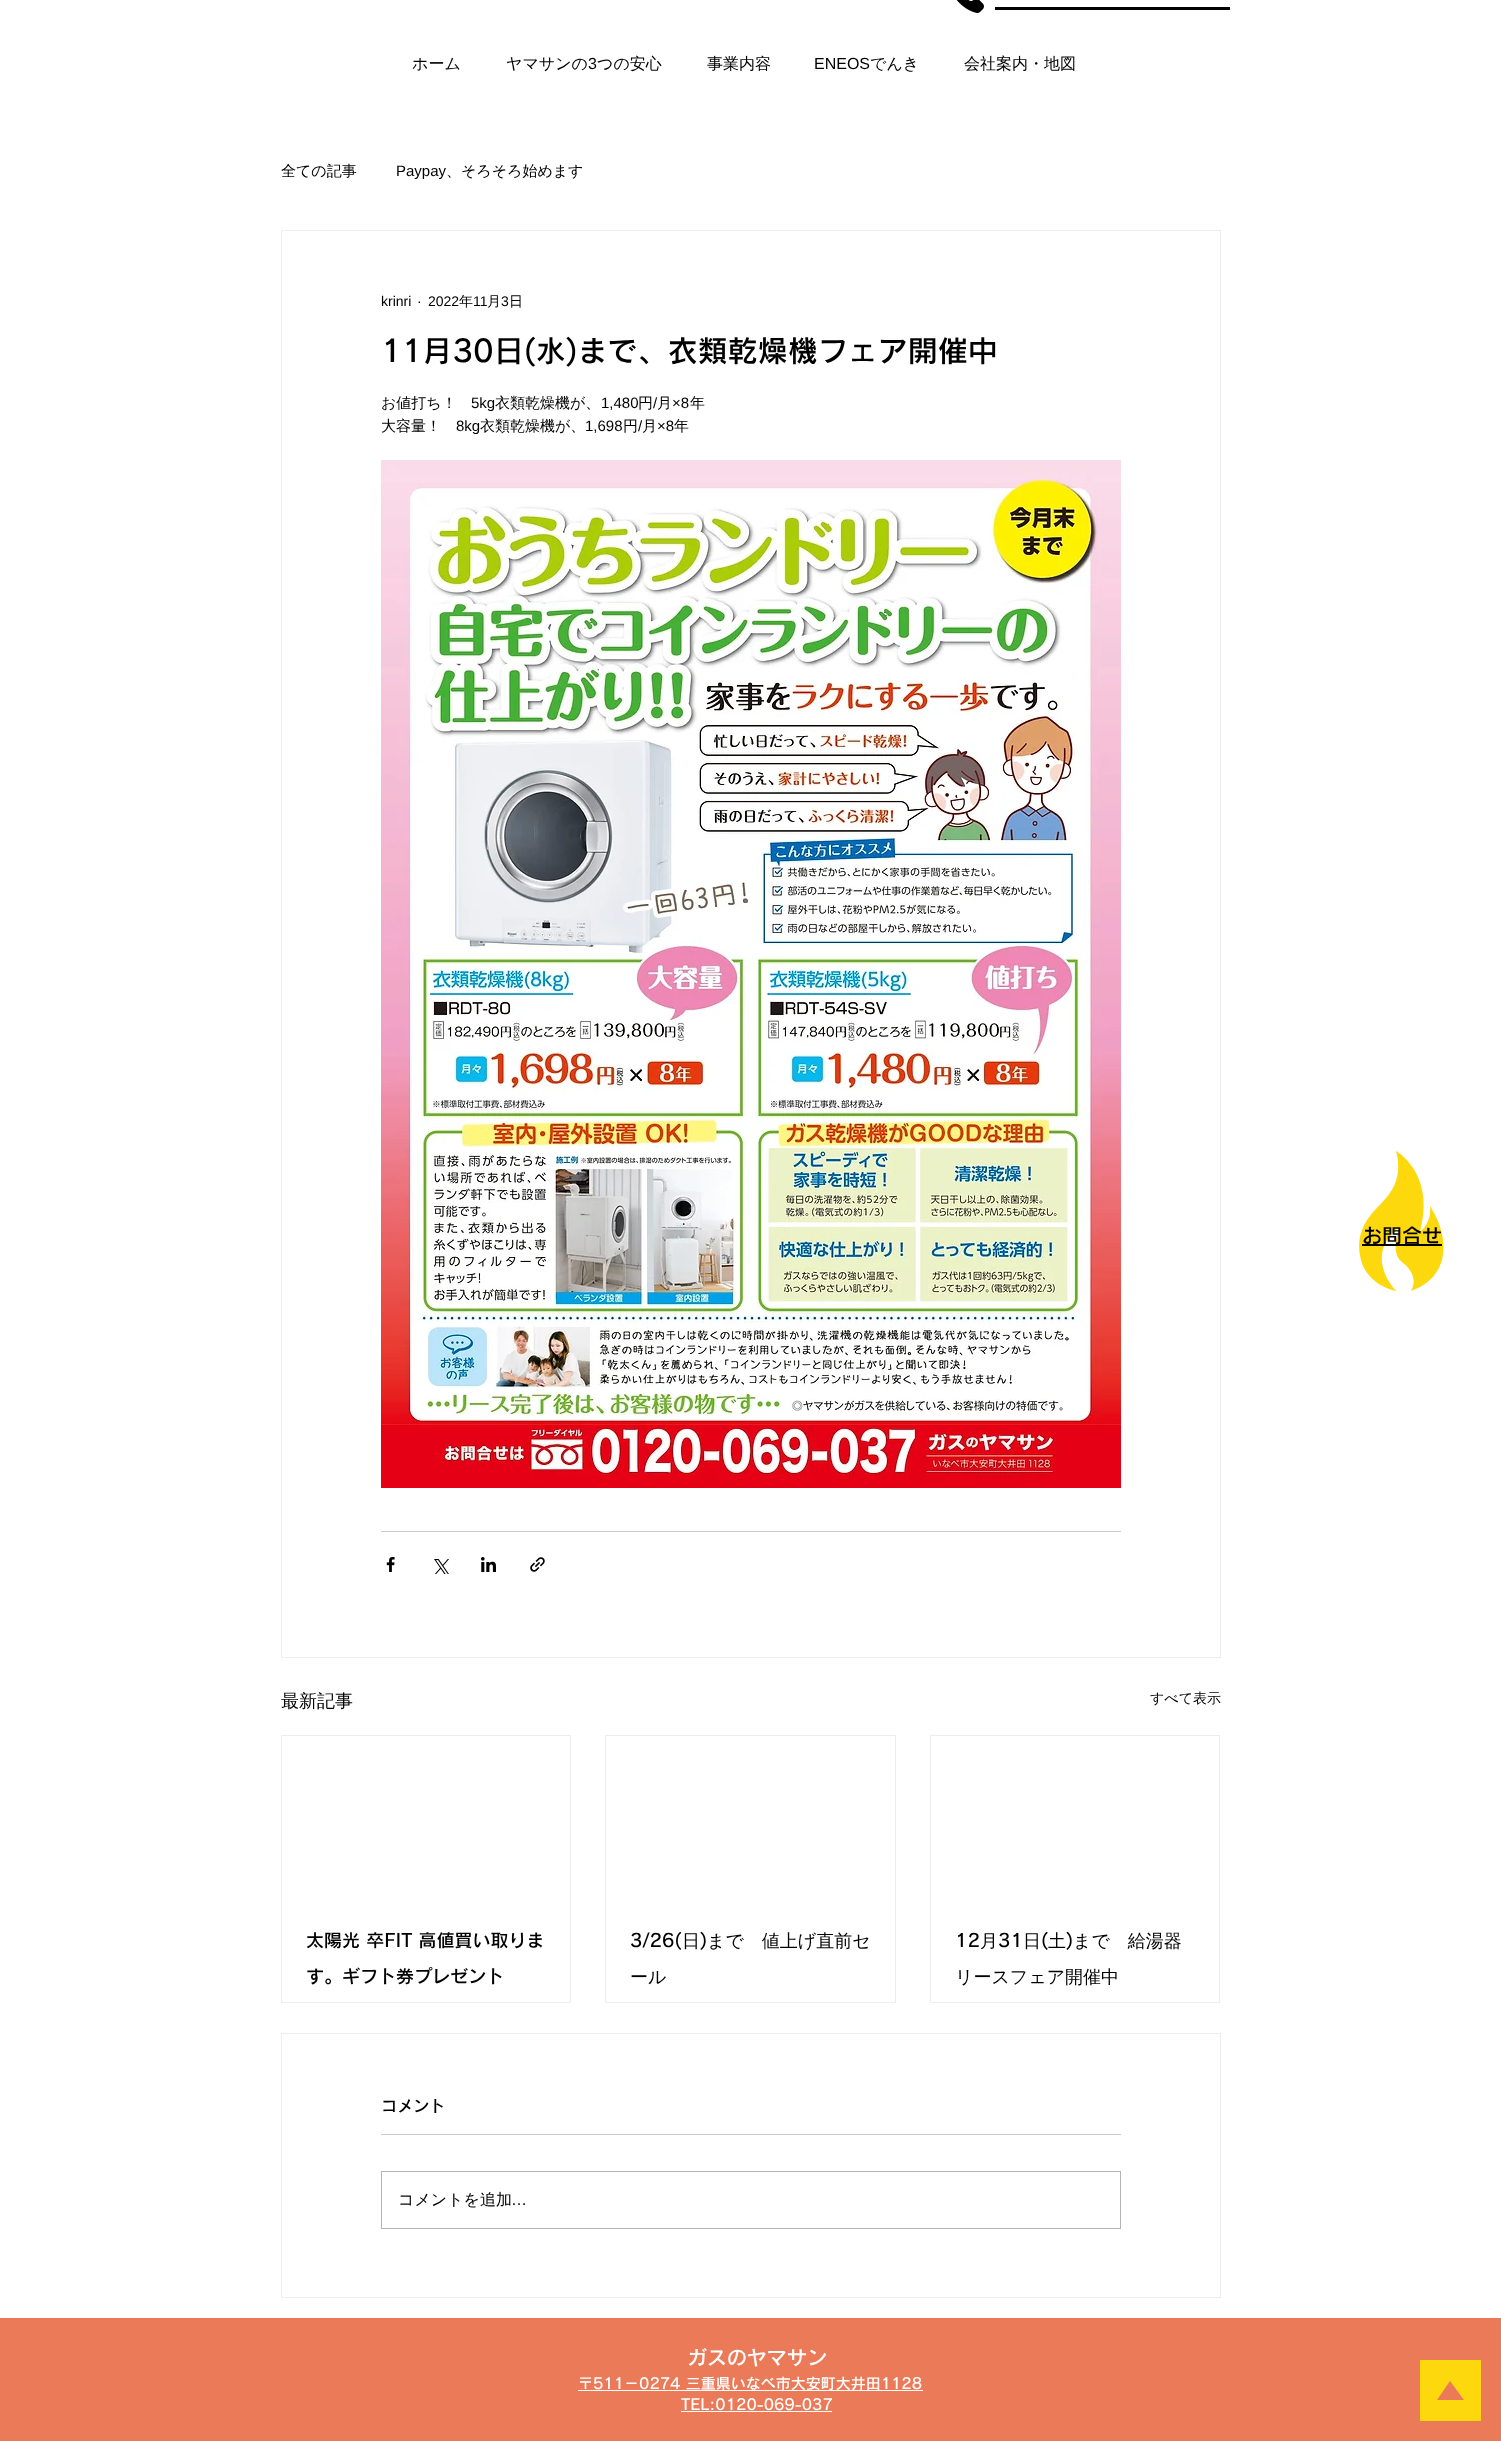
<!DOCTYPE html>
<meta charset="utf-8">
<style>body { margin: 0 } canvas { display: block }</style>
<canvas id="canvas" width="1501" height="2441"></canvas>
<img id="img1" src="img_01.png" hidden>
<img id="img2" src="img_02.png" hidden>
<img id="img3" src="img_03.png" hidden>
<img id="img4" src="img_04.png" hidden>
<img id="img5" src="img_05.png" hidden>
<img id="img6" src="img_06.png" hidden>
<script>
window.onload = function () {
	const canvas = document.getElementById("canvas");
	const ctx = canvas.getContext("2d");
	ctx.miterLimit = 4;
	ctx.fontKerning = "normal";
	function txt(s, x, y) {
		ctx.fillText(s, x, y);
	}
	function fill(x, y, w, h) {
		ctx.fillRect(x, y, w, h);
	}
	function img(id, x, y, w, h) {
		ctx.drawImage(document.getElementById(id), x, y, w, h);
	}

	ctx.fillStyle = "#FFFFFF";
	fill(0, 0, 1501, 2441);
	img("img1", 956, 0, 28, 13);
	ctx.fillStyle = "#000000";
	fill(995, 7, 235, 3);
	ctx.strokeStyle = "#EEECEC";
	ctx.strokeRect(281.5, 230.5, 939, 1427);
	img("img2", 381, 460, 740, 1028);
	ctx.fillStyle = "#CCCCCC";
	fill(381, 1531, 740, 1);
	img("img3", 386, 1557, 9, 15);
	img("img4", 434, 1559, 15, 15);
	img("img5", 481, 1557, 15, 15);
	img("img6", 530, 1557, 15, 15);
	ctx.strokeRect(281.5, 1735.5, 289, 267);
	ctx.strokeRect(605.5, 1735.5, 290, 267);
	ctx.strokeRect(930.5, 1735.5, 289, 267);
	ctx.strokeRect(281.5, 2033.5, 939, 264);
	fill(381, 2134, 740, 1);
	ctx.strokeStyle = "#B3B3B3";
	ctx.strokeRect(381.5, 2171.5, 739, 57);
	ctx.fillStyle = "#FDD80D";
	ctx.beginPath();
	ctx.moveTo(1396, 1291);
	ctx.bezierCurveTo(1396, 1291, 1368, 1286, 1361, 1260);
	ctx.bezierCurveTo(1355, 1236, 1365, 1221, 1375, 1210);
	ctx.bezierCurveTo(1385, 1199, 1405, 1184, 1396, 1151);
	ctx.bezierCurveTo(1396, 1151, 1436, 1173, 1420, 1232);
	ctx.bezierCurveTo(1420, 1232, 1432, 1223, 1430, 1206);
	ctx.bezierCurveTo(1450, 1237, 1451, 1277, 1411, 1291);
	ctx.bezierCurveTo(1411, 1291, 1421, 1277, 1402, 1262);
	ctx.bezierCurveTo(1389, 1252, 1400, 1227, 1400, 1227);
	ctx.bezierCurveTo(1400, 1227, 1362, 1250, 1396, 1291);
	ctx.closePath();
	ctx.fill();
	ctx.fillStyle = "#000000";
	fill(1362, 1244, 80, 2);
	ctx.fillStyle = "#EB7A58";
	fill(0, 2318, 1501, 123);
	ctx.fillStyle = "#FFFFFF";
	fill(578, 2390, 345, 1);
	fill(681, 2411, 151, 1);
	ctx.fillStyle = "#FDD80D";
	ctx.beginPath();
	ctx.moveTo(1420, 2360);
	ctx.lineTo(1420, 2421);
	ctx.lineTo(1481, 2421);
	ctx.lineTo(1481, 2360);
	ctx.closePath();
	ctx.moveTo(1437, 2400);
	ctx.lineTo(1450, 2381);
	ctx.lineTo(1464, 2400);
	ctx.closePath();
	ctx.fill();
	ctx.font = "500 16px WenQuanYi Zen Hei";
	ctx.fillStyle = "#000000";
	txt("ホーム", 412, 69);
	txt("ヤマサンの", 506, 69);
	ctx.font = "16px Liberation Sans";
	txt("3", 588, 69);
	ctx.font = "500 16px WenQuanYi Zen Hei";
	txt("つの安心", 597, 69);
	txt("事業内容", 707, 69);
	ctx.font = "16px Liberation Sans";
	txt("ENEOS", 814, 69);
	ctx.font = "500 16px WenQuanYi Zen Hei";
	txt("でんき", 870, 69);
	txt("会社案内・地図", 964, 69);
	ctx.font = "500 15px WenQuanYi Zen Hei";
	txt("全ての記事", 281, 176);
	ctx.font = "15px Liberation Sans";
	txt("Paypay", 396, 176);
	ctx.font = "500 15px WenQuanYi Zen Hei";
	txt("、そろそろ始めます", 446, 176);
	ctx.font = "14px Liberation Sans";
	txt("krinri", 381, 306);
	txt("·", 417, 306);
	txt("2022", 428, 306);
	ctx.font = "500 14px WenQuanYi Zen Hei";
	txt("年", 459, 306);
	ctx.font = "14px Liberation Sans";
	txt("11", 473, 306);
	ctx.font = "500 14px WenQuanYi Zen Hei";
	txt("月", 487, 306);
	ctx.font = "14px Liberation Sans";
	txt("3", 501, 306);
	ctx.font = "500 14px WenQuanYi Zen Hei";
	txt("日", 509, 306);
	ctx.font = "600 30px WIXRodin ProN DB";
	txt("11月30日(水)まで、衣類乾燥機フェア開催中", 381, 362);
	ctx.font = "500 15px WenQuanYi Zen Hei";
	txt("お値打ち！", 381, 408);
	ctx.font = "15px Liberation Sans";
	txt("5kg", 471, 408);
	ctx.font = "500 15px WenQuanYi Zen Hei";
	txt("衣類乾燥機が、", 495, 408);
	ctx.font = "15px Liberation Sans";
	txt("1,480", 601, 408);
	ctx.font = "500 15px WenQuanYi Zen Hei";
	txt("円", 638, 408);
	ctx.font = "15px Liberation Sans";
	txt("/", 653, 408);
	ctx.font = "500 15px WenQuanYi Zen Hei";
	txt("月", 657, 408);
	ctx.font = "15px Liberation Sans";
	txt("×8", 672, 408);
	ctx.font = "500 15px WenQuanYi Zen Hei";
	txt("年", 690, 408);
	txt("大容量！", 381, 431);
	ctx.font = "15px Liberation Sans";
	txt("8kg", 456, 431);
	ctx.font = "500 15px WenQuanYi Zen Hei";
	txt("衣類乾燥機が、", 480, 431);
	ctx.font = "15px Liberation Sans";
	txt("1,698", 585, 431);
	ctx.font = "500 15px WenQuanYi Zen Hei";
	txt("円", 623, 431);
	ctx.font = "15px Liberation Sans";
	txt("/", 638, 431);
	ctx.font = "500 15px WenQuanYi Zen Hei";
	txt("月", 642, 431);
	ctx.font = "15px Liberation Sans";
	txt("×8", 657, 431);
	ctx.font = "500 15px WenQuanYi Zen Hei";
	txt("年", 674, 431);
	ctx.font = "500 18px WenQuanYi Zen Hei";
	txt("最新記事", 281, 1707);
	ctx.font = "500 14px WenQuanYi Zen Hei";
	txt("すべて表示", 1150, 1703);
	ctx.font = "600 18px WIXRodin ProN DB";
	txt("太陽光 卒FIT 高値買い取りま", 306, 1947);
	txt("す。ギフト券プレゼント", 306, 1983);
	txt("3/26(", 630, 1947);
	ctx.font = "500 18px WenQuanYi Zen Hei";
	txt("日", 682, 1947);
	ctx.font = "600 18px WIXRodin ProN DB";
	txt(")", 700, 1947);
	ctx.font = "500 18px WenQuanYi Zen Hei";
	txt("まで　値上げ直前セ", 707, 1947);
	txt("ール", 630, 1983);
	ctx.font = "600 18px WIXRodin ProN DB";
	txt("12", 955, 1947);
	ctx.font = "500 18px WenQuanYi Zen Hei";
	txt("月", 980, 1947);
	ctx.font = "600 18px WIXRodin ProN DB";
	txt("31", 998, 1947);
	ctx.font = "500 18px WenQuanYi Zen Hei";
	txt("日", 1023, 1947);
	ctx.font = "600 18px WIXRodin ProN DB";
	txt("(", 1041, 1947);
	ctx.font = "500 18px WenQuanYi Zen Hei";
	txt("土", 1048, 1947);
	ctx.font = "600 18px WIXRodin ProN DB";
	txt(")", 1066, 1947);
	ctx.font = "500 18px WenQuanYi Zen Hei";
	txt("まで　給湯器", 1073, 1947);
	txt("リースフェア開催中", 955, 1983);
	ctx.font = "600 16px WIXRodin ProN DB";
	txt("コメント", 381, 2112);
	ctx.font = "500 16px WenQuanYi Zen Hei";
	txt("コメントを追加", 398, 2205);
	ctx.font = "16px Liberation Sans";
	txt("…", 511, 2205);
	ctx.font = "600 20px WIXRodin ProN DB";
	txt("お問合せ", 1362, 1243);
	ctx.fillStyle = "#FFFFFF";
	txt("ガスのヤマサン", 687, 2365);
	ctx.font = "600 15px WIXRodin ProN DB";
	txt("〒511－0274 三重県いなべ市大安町大井田1128", 578, 2389);
	txt("TEL:0120-069-037", 681, 2410);
};
</script>
